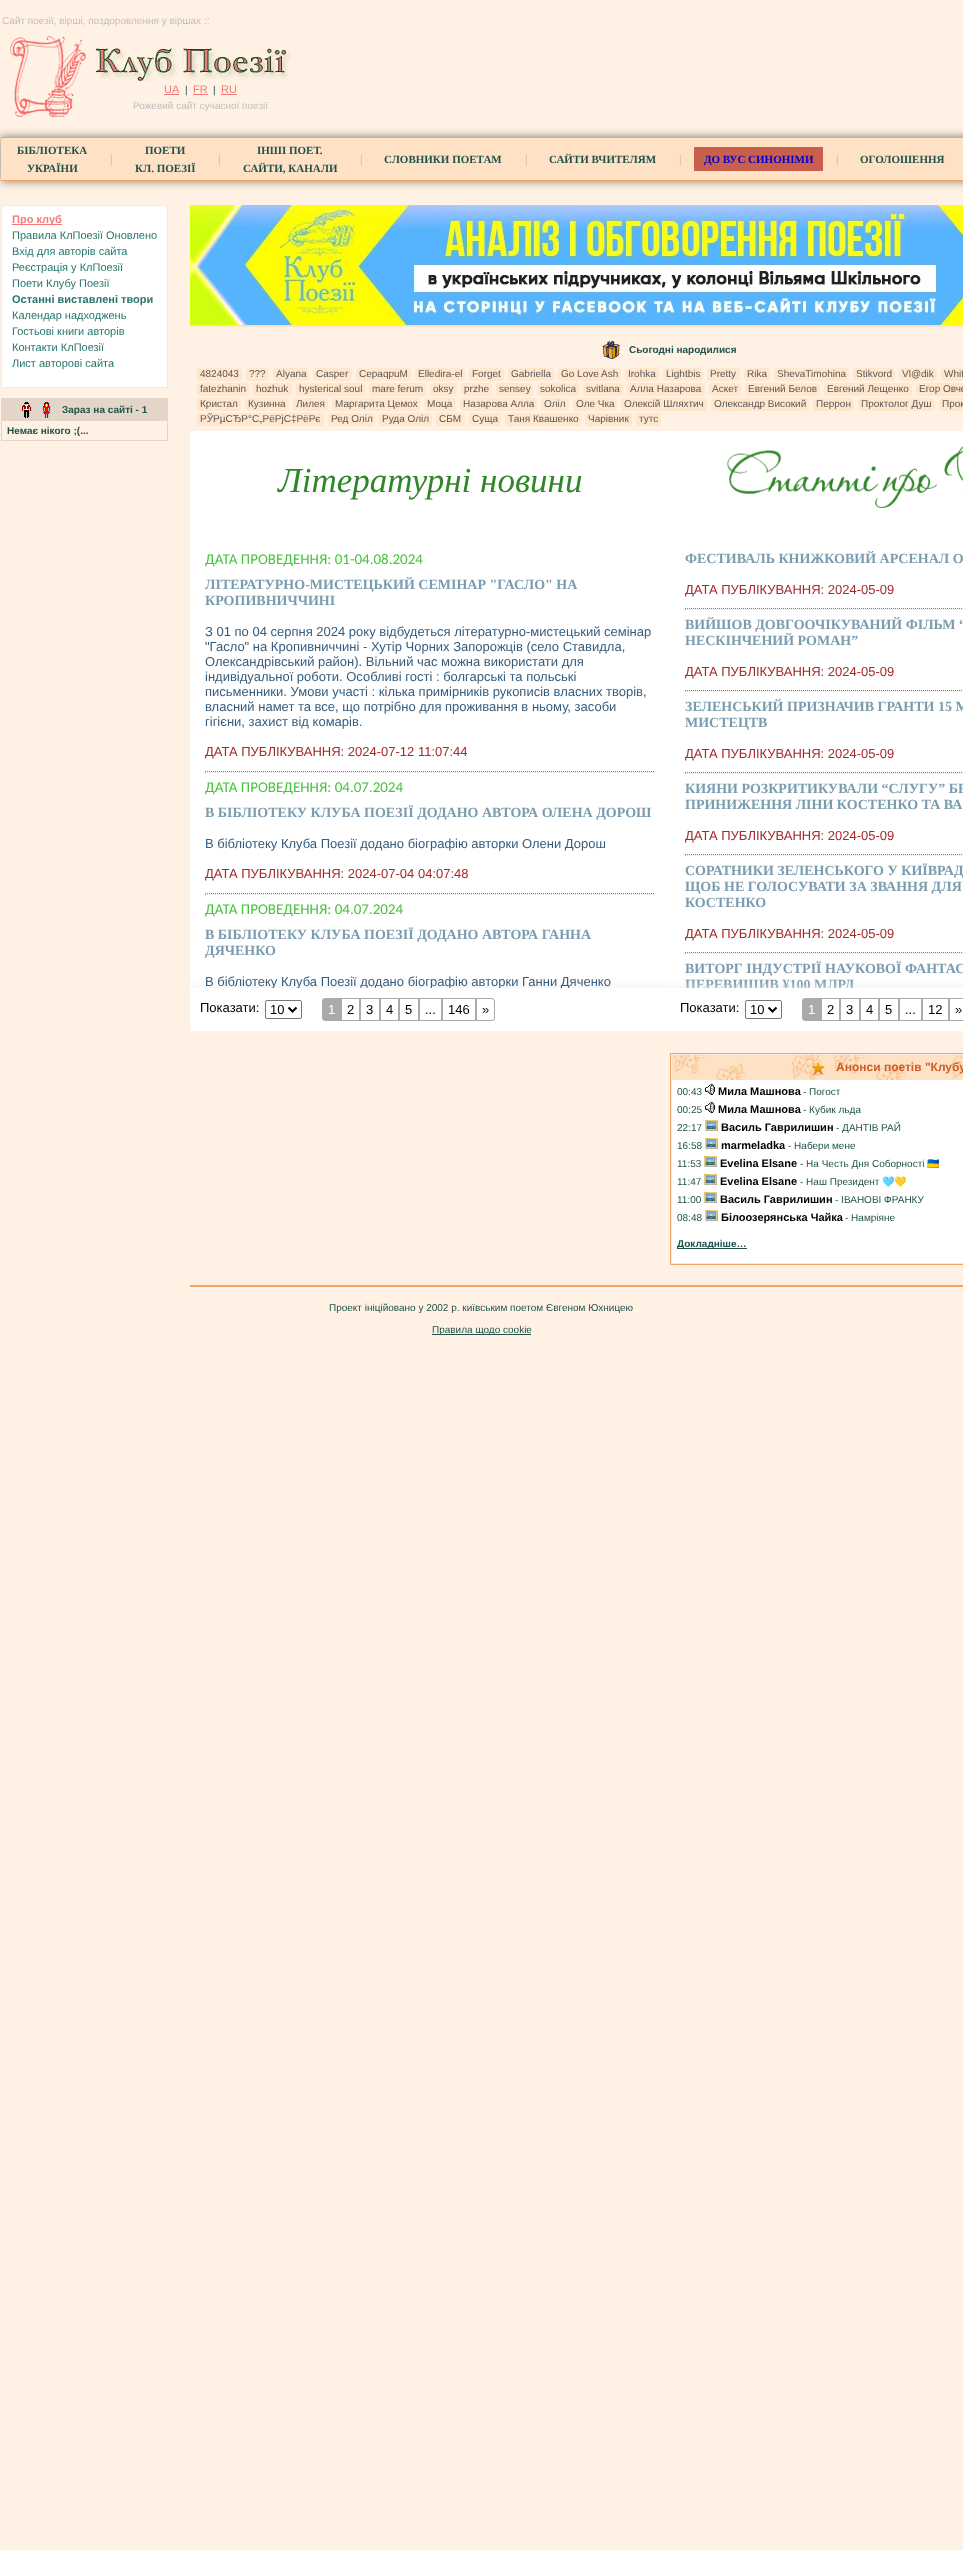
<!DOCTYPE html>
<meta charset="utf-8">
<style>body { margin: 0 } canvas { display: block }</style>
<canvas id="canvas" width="963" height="2550"></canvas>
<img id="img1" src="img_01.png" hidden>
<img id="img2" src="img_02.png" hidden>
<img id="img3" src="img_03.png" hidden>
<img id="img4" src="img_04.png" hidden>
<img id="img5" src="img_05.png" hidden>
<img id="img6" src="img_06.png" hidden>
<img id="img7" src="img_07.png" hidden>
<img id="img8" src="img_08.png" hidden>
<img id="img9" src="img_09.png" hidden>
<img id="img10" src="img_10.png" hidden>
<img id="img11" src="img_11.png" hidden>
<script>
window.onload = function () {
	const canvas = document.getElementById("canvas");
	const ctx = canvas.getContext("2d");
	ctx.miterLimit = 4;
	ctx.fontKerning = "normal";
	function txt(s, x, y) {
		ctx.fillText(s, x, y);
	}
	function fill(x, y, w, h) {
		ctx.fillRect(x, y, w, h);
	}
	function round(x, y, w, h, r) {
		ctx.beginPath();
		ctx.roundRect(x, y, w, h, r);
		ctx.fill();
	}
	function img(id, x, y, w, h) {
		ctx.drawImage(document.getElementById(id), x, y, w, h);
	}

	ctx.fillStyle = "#FFF1E3";
	fill(0, 0, 963, 2550);
	img("img1", 10, 36, 76, 81);
	img("img2", 96, 48, 195, 33);
	ctx.fillStyle = "#F57979";
	fill(164, 94, 15, 1);
	fill(193, 94, 15, 1);
	fill(221, 94, 16, 1);
	ctx.fillStyle = "#FFE2C5";
	fill(1, 138, 962, 42);
	ctx.save();
	ctx.beginPath();
	ctx.moveTo(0, 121);
	ctx.lineTo(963, 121);
	ctx.lineTo(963, 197);
	ctx.lineTo(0, 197);
	ctx.closePath();
	ctx.moveTo(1, 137);
	ctx.lineTo(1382, 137);
	ctx.lineTo(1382, 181);
	ctx.lineTo(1, 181);
	ctx.closePath();
	ctx.clip("evenodd");
	ctx.fillStyle = "rgba(0, 0, 0, 0.5)";
	ctx.filter = "blur(5px)";
	ctx.beginPath();
	ctx.rect(1, 137, 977, 44);
	ctx.fill();
	ctx.filter = "none";
	ctx.restore();
	ctx.fillStyle = "#F4A460";
	fill(1, 137, 962, 1);
	fill(1, 180, 962, 1);
	ctx.fillStyle = "#CB5F4E";
	fill(694, 147, 129, 24);
	ctx.fillStyle = "#FFFFFF";
	ctx.beginPath();
	ctx.rect(1.5, 205.5, 166, 182);
	ctx.fill();
	ctx.strokeStyle = "#EBEBEB";
	ctx.stroke();
	ctx.fillStyle = "#F57979";
	fill(12, 224, 50, 1);
	ctx.fillStyle = "#E3D5C7";
	fill(1, 398, 167, 43);
	img("img3", 22, 402, 10, 16);
	img("img4", 43, 402, 8, 16);
	ctx.fillStyle = "#FFF1E3";
	fill(2, 421, 165, 19);
	ctx.fillStyle = "#FFE2C5";
	fill(190, 325, 773, 2);
	img("img5", 190, 205, 773, 120);
	img("img6", 602, 341, 18, 18);
	ctx.fillStyle = "#FFE6CD";
	round(197, 368, 45, 13, 4);
	round(246, 368, 23, 13, 4);
	round(273, 368, 36, 13, 4);
	round(313, 368, 39, 13, 4);
	round(356, 368, 55, 13, 4);
	round(415, 368, 50, 13, 4);
	round(469, 368, 35, 13, 4);
	round(508, 368, 46, 13, 4);
	round(558, 368, 63, 13, 4);
	round(625, 368, 34, 13, 4);
	round(663, 368, 40, 13, 4);
	round(707, 368, 33, 13, 4);
	round(744, 368, 26, 13, 4);
	round(774, 368, 75, 13, 4);
	round(853, 368, 42, 13, 4);
	round(899, 368, 38, 13, 4);
	round(941, 368, 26, 13, 4);
	round(197, 383, 52, 13, 4);
	round(253, 383, 39, 13, 4);
	round(296, 383, 69, 13, 4);
	round(369, 383, 57, 13, 4);
	round(430, 383, 27, 13, 4);
	round(461, 383, 31, 13, 4);
	round(496, 383, 37, 13, 4);
	round(537, 383, 42, 13, 4);
	round(583, 383, 40, 13, 4);
	round(627, 383, 78, 13, 4);
	round(709, 383, 32, 13, 4);
	round(745, 383, 75, 13, 4);
	round(824, 383, 88, 13, 4);
	round(916, 383, 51, 13, 4);
	round(197, 398, 44, 13, 4);
	round(245, 398, 44, 13, 4);
	round(293, 398, 35, 13, 4);
	round(332, 398, 88, 13, 4);
	round(424, 398, 32, 13, 4);
	round(460, 398, 77, 13, 4);
	round(541, 398, 28, 13, 4);
	round(573, 398, 44, 13, 4);
	round(621, 398, 86, 13, 4);
	round(711, 398, 98, 13, 4);
	round(813, 398, 41, 13, 4);
	round(858, 398, 77, 13, 4);
	round(939, 398, 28, 13, 4);
	round(197, 413, 127, 13, 4);
	round(328, 413, 47, 13, 4);
	round(379, 413, 53, 13, 4);
	round(436, 413, 29, 13, 4);
	round(469, 413, 32, 13, 4);
	round(505, 413, 76, 13, 4);
	round(585, 413, 47, 13, 4);
	round(636, 413, 25, 13, 4);
	ctx.fillStyle = "#FFFFFF";
	fill(190, 431, 773, 557);
	ctx.beginPath();
	ctx.moveTo(205, 771.5);
	ctx.lineTo(655, 771.5);
	ctx.strokeStyle = "#808080";
	ctx.setLineDash([1, 1]);
	ctx.stroke();
	ctx.fillStyle = "#EEEEEE";
	fill(654, 771, 1, 2);
	fill(205, 772, 450, 1);
	ctx.fillStyle = "#9F9F9F";
	fill(205, 771, 1, 2);
	ctx.beginPath();
	ctx.moveTo(205, 893.5);
	ctx.lineTo(655, 893.5);
	ctx.stroke();
	ctx.fillStyle = "#EEEEEE";
	fill(654, 893, 1, 2);
	fill(205, 894, 450, 1);
	ctx.fillStyle = "#9F9F9F";
	fill(205, 893, 1, 2);
	ctx.save();
	ctx.beginPath();
	ctx.rect(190, 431, 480, 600);
	ctx.clip();
	ctx.fillStyle = "#EBEBEB";
	ctx.filter = "blur(5.5px)";
	ctx.beginPath();
	ctx.rect(186, 989, 488, 51);
	ctx.fill();
	ctx.filter = "none";
	ctx.restore();
	img("img7", 727, 446, 236, 62);
	ctx.beginPath();
	ctx.moveTo(685, 608.5);
	ctx.lineTo(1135, 608.5);
	ctx.stroke();
	ctx.fillStyle = "#EEEEEE";
	fill(685, 609, 278, 1);
	ctx.fillStyle = "#9F9F9F";
	fill(685, 608, 1, 2);
	ctx.beginPath();
	ctx.moveTo(685, 690.5);
	ctx.lineTo(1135, 690.5);
	ctx.stroke();
	ctx.fillStyle = "#EEEEEE";
	fill(685, 691, 278, 1);
	ctx.fillStyle = "#9F9F9F";
	fill(685, 690, 1, 2);
	ctx.beginPath();
	ctx.moveTo(685, 772.5);
	ctx.lineTo(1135, 772.5);
	ctx.stroke();
	ctx.fillStyle = "#EEEEEE";
	fill(685, 773, 278, 1);
	ctx.fillStyle = "#9F9F9F";
	fill(685, 772, 1, 2);
	ctx.beginPath();
	ctx.moveTo(685, 854.5);
	ctx.lineTo(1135, 854.5);
	ctx.stroke();
	ctx.fillStyle = "#EEEEEE";
	fill(685, 855, 278, 1);
	ctx.fillStyle = "#9F9F9F";
	fill(685, 854, 1, 2);
	ctx.beginPath();
	ctx.moveTo(685, 952.5);
	ctx.lineTo(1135, 952.5);
	ctx.stroke();
	ctx.fillStyle = "#EEEEEE";
	fill(685, 953, 278, 1);
	ctx.fillStyle = "#9F9F9F";
	fill(685, 952, 1, 2);
	ctx.fillStyle = "#F4A460";
	fill(190, 1285, 773, 2);
	ctx.fillStyle = "#1E524B";
	fill(432, 1334, 99, 1);
	ctx.font = "10px Liberation Sans";
	ctx.fillStyle = "#C0C0C0";
	txt("Сайт поезії, вірші, поздоровлення у віршах ::", 2, 24);
	ctx.font = "11px Liberation Sans";
	ctx.fillStyle = "#F57979";
	txt("UA", 164, 93);
	ctx.font = "10px Liberation Sans";
	ctx.fillStyle = "#1E524B";
	txt("|", 185, 93);
	ctx.font = "11px Liberation Sans";
	ctx.fillStyle = "#F57979";
	txt("FR", 193, 93);
	ctx.font = "10px Liberation Sans";
	ctx.fillStyle = "#1E524B";
	txt("|", 213, 93);
	ctx.font = "11px Liberation Sans";
	ctx.fillStyle = "#F57979";
	txt("RU", 221, 93);
	ctx.font = "10px Liberation Sans";
	ctx.fillStyle = "#C0C0C0";
	txt("Рожевий сайт сучасної поезії", 133, 109);
	ctx.font = "bold 11px Liberation Serif";
	ctx.fillStyle = "#1E524B";
	txt("БІБЛІОТЕКА", 17, 154);
	txt("УКРАЇНИ", 27, 172);
	ctx.font = "12px Liberation Serif";
	ctx.fillStyle = "#F4A460";
	txt("|", 110, 163);
	ctx.font = "bold 11px Liberation Serif";
	ctx.fillStyle = "#1E524B";
	txt("ПОЕТИ", 145, 154);
	txt("КЛ. ПОЕЗІЇ", 135, 172);
	ctx.font = "12px Liberation Serif";
	ctx.fillStyle = "#F4A460";
	txt("|", 218, 163);
	ctx.font = "bold 11px Liberation Serif";
	ctx.fillStyle = "#1E524B";
	txt("ІНШІ ПОЕТ.", 257, 154);
	txt("САЙТИ, КАНАЛИ", 243, 172);
	ctx.font = "12px Liberation Serif";
	ctx.fillStyle = "#F4A460";
	txt("|", 360, 163);
	ctx.font = "bold 11px Liberation Serif";
	ctx.fillStyle = "#1E524B";
	txt("СЛОВНИКИ ПОЕТАМ", 384, 163);
	ctx.font = "12px Liberation Serif";
	ctx.fillStyle = "#F4A460";
	txt("|", 525, 163);
	ctx.font = "bold 11px Liberation Serif";
	ctx.fillStyle = "#1E524B";
	txt("САЙТИ ВЧИТЕЛЯМ", 549, 163);
	ctx.font = "12px Liberation Serif";
	ctx.fillStyle = "#F4A460";
	txt("|", 679, 163);
	ctx.font = "bold 11px Liberation Serif";
	ctx.fillStyle = "#0000CD";
	txt("ДО ВУС СИНОНІМИ", 704, 163);
	ctx.font = "12px Liberation Serif";
	ctx.fillStyle = "#F4A460";
	txt("|", 836, 163);
	ctx.font = "bold 11px Liberation Serif";
	ctx.fillStyle = "#1E524B";
	txt("ОГОЛОШЕННЯ", 860, 163);
	ctx.font = "bold 11px Liberation Sans";
	ctx.fillStyle = "#F57979";
	txt("Про клуб", 12, 223);
	ctx.font = "11px Liberation Sans";
	ctx.fillStyle = "#28756A";
	txt("Правила КлПоезії Оновлено", 12, 239);
	txt("Вхiд для авторів сайта", 12, 255);
	txt("Реєстрація у КлПоезії", 12, 271);
	txt("Поети Клубу Поезії", 12, 287);
	ctx.font = "bold 11px Liberation Sans";
	txt("Останні виставлені твори", 12, 303);
	ctx.font = "11px Liberation Sans";
	txt("Календар надходжень", 12, 319);
	txt("Гостьові книги aвторів", 12, 335);
	txt("Контакти КлПоезії", 12, 351);
	txt("Лист авторові сайта", 12, 367);
	ctx.font = "bold 10px Liberation Sans";
	ctx.fillStyle = "#1E524B";
	txt("Зараз на сайті - 1", 62, 413);
	txt("Немає нікого ;(...", 7, 434);
	txt("Сьогодні народилися", 629, 353);
	ctx.font = "10px Liberation Sans";
	ctx.fillStyle = "#585858";
	txt("4824043", 200, 377);
	txt("???", 249, 377);
	txt("Alyana", 276, 377);
	txt("Casper", 316, 377);
	txt("CepaqpuM", 359, 377);
	txt("Elledira-el", 418, 377);
	txt("Forget", 472, 377);
	txt("Gabriella", 511, 377);
	txt("Go Love Ash", 561, 377);
	txt("Irohka", 628, 377);
	txt("Lightbis", 666, 377);
	txt("Pretty", 710, 377);
	txt("Rika", 747, 377);
	txt("ShevaTimohina", 777, 377);
	txt("Stikvord", 856, 377);
	txt("Vl@dik", 902, 377);
	txt("Whit", 944, 377);
	txt("fatezhanin", 200, 392);
	txt("hozhuk", 256, 392);
	txt("hysterical soul", 299, 392);
	txt("mare ferum", 372, 392);
	txt("oksy", 433, 392);
	txt("przhe", 464, 392);
	txt("sensey", 499, 392);
	txt("sokolica", 540, 392);
	txt("svitlana", 586, 392);
	txt("Алла Назарова", 630, 392);
	txt("Аскет", 712, 392);
	txt("Евгений Белов", 748, 392);
	txt("Евгений Лещенко", 827, 392);
	txt("Егор Овче", 919, 392);
	txt("Кристал", 200, 407);
	txt("Кузинна", 248, 407);
	txt("Лилея", 296, 407);
	txt("Маргарита Цемох", 335, 407);
	txt("Моца", 427, 407);
	txt("Назарова Алла", 463, 407);
	txt("Оліл", 544, 407);
	txt("Оле Чка", 576, 407);
	txt("Олексій Шляхтич", 624, 407);
	txt("Олександр Високий", 714, 407);
	txt("Перрон", 816, 407);
	txt("Проктолог Душ", 861, 407);
	txt("Прок", 942, 407);
	txt("РЎРµСЂР°С„РёРјС‡РёРє", 200, 422);
	txt("Ред Оліл", 331, 422);
	txt("Руда Оліл", 382, 422);
	txt("СБМ", 439, 422);
	txt("Суща", 472, 422);
	txt("Таня Квашенко", 508, 422);
	txt("Чарівник", 588, 422);
	txt("тутс", 639, 422);
	ctx.font = "italic 35px Liberation Serif";
	ctx.fillStyle = "#308628";
	txt("Літературні новини", 278, 492);
	ctx.font = "15px Carlito";
	ctx.fillStyle = "#47C43B";
	txt("ДАТА ПРОВЕДЕННЯ: 01-04.08.2024", 205, 564);
	ctx.font = "bold 14px Liberation Serif";
	ctx.fillStyle = "#7B9CAF";
	txt("ЛІТЕРАТУРНО-МИСТЕЦЬКИЙ СЕМІНАР \"ГАСЛО\" НА", 205, 589);
	txt("КРОПИВНИЧЧИНІ", 205, 605);
	ctx.font = "13px Liberation Sans";
	ctx.fillStyle = "#355C7D";
	txt("З 01 по 04 серпня 2024 року відбудеться літературно-мистецький семінар", 205, 636);
	txt("\"Гасло\" на Кропивниччині - Хутір Чорних Запорожців (село Ставидла,", 205, 651);
	txt("Олександрівський район). Вільний час можна використати для", 205, 666);
	txt("індивідуальної роботи. Особливі гості : болгарські та польські", 205, 681);
	txt("письменники. Умови участі : кілька примірників рукописів власних творів,", 205, 696);
	txt("власний намет та все, що потрібно для проживання в ньому, засоби", 205, 711);
	txt("гігієни, захист від комарів.", 205, 726);
	ctx.fillStyle = "#A52A2A";
	txt("ДАТА ПУБЛІКУВАННЯ: 2024-07-12 11:07:44", 205, 756);
	ctx.font = "15px Carlito";
	ctx.fillStyle = "#47C43B";
	txt("ДАТА ПРОВЕДЕННЯ: 04.07.2024", 205, 792);
	ctx.font = "bold 14px Liberation Serif";
	ctx.fillStyle = "#7B9CAF";
	txt("В БІБЛІОТЕКУ КЛУБА ПОЕЗІЇ ДОДАНО АВТОРА ОЛЕНА ДОРОШ", 205, 817);
	ctx.font = "13px Liberation Sans";
	ctx.fillStyle = "#355C7D";
	txt("В бібліотеку Клуба Поезії додано біографію авторки Олени Дорош", 205, 848);
	ctx.fillStyle = "#A52A2A";
	txt("ДАТА ПУБЛІКУВАННЯ: 2024-07-04 04:07:48", 205, 878);
	ctx.font = "15px Carlito";
	ctx.fillStyle = "#47C43B";
	txt("ДАТА ПРОВЕДЕННЯ: 04.07.2024", 205, 914);
	ctx.font = "bold 14px Liberation Serif";
	ctx.fillStyle = "#7B9CAF";
	txt("В БІБЛІОТЕКУ КЛУБА ПОЕЗІЇ ДОДАНО АВТОРА ГАННА", 205, 939);
	txt("ДЯЧЕНКО", 205, 955);
	ctx.font = "13px Liberation Sans";
	ctx.fillStyle = "#355C7D";
	txt("В бібліотеку Клуба Поезії додано біографію авторки Ганни Дяченко", 205, 986);
	ctx.fillStyle = "#FFFFFF";
	fill(190, 988, 480, 43);
	ctx.fillStyle = "#000000";
	txt("Показати:", 200, 1012);
	ctx.beginPath();
	ctx.roundRect(265.5, 1000.5, 36, 18, 1.5);
	ctx.strokeStyle = "#767676";
	ctx.setLineDash([]);
	ctx.stroke();
	ctx.beginPath();
	ctx.moveTo(288.5, 1007.5);
	ctx.lineTo(292.5, 1011.5);
	ctx.lineTo(296.5, 1007.5);
	ctx.strokeStyle = "#000000";
	ctx.lineWidth = 2;
	ctx.stroke();
	txt("10", 270, 1014);
	ctx.fillStyle = "#AAAAAA";
	ctx.beginPath();
	ctx.roundRect(322.5, 998.5, 18, 22, [2.5, 0, 0, 2.5]);
	ctx.fill();
	ctx.strokeStyle = "#AAAAAA";
	ctx.lineWidth = 1;
	ctx.stroke();
	ctx.fillStyle = "#FFFFFF";
	txt("1", 328, 1014);
	ctx.strokeRect(341.5, 998.5, 18, 22);
	ctx.fillStyle = "#000000";
	txt("2", 347, 1014);
	ctx.strokeRect(360.5, 998.5, 19, 22);
	txt("3", 366, 1014);
	ctx.strokeRect(380.5, 998.5, 18, 22);
	txt("4", 386, 1014);
	ctx.strokeRect(399.5, 998.5, 19, 22);
	txt("5", 405, 1014);
	ctx.strokeRect(419.5, 998.5, 22, 22);
	txt("...", 425, 1014);
	ctx.strokeRect(442.5, 998.5, 33, 22);
	txt("146", 448, 1014);
	ctx.beginPath();
	ctx.roundRect(476.5, 998.5, 18, 22, [0, 2.5, 2.5, 0]);
	ctx.stroke();
	txt("»", 482, 1014);
	ctx.font = "bold 14px Liberation Serif";
	ctx.fillStyle = "#7B9CAF";
	txt("ФЕСТИВАЛЬ КНИЖКОВИЙ АРСЕНАЛ О", 685, 563);
	ctx.font = "13px Liberation Sans";
	ctx.fillStyle = "#A52A2A";
	txt("ДАТА ПУБЛІКУВАННЯ: 2024-05-09", 685, 594);
	ctx.font = "bold 14px Liberation Serif";
	ctx.fillStyle = "#7B9CAF";
	txt("ВИЙШОВ ДОВГООЧІКУВАНИЙ ФІЛЬМ “", 685, 629);
	txt("НЕСКІНЧЕНИЙ РОМАН”", 685, 645);
	ctx.font = "13px Liberation Sans";
	ctx.fillStyle = "#A52A2A";
	txt("ДАТА ПУБЛІКУВАННЯ: 2024-05-09", 685, 676);
	ctx.font = "bold 14px Liberation Serif";
	ctx.fillStyle = "#7B9CAF";
	txt("ЗЕЛЕНСЬКИЙ ПРИЗНАЧИВ ГРАНТИ 15 М", 685, 711);
	txt("МИСТЕЦТВ", 685, 727);
	ctx.font = "13px Liberation Sans";
	ctx.fillStyle = "#A52A2A";
	txt("ДАТА ПУБЛІКУВАННЯ: 2024-05-09", 685, 758);
	ctx.font = "bold 14px Liberation Serif";
	ctx.fillStyle = "#7B9CAF";
	txt("КИЯНИ РОЗКРИТИКУВАЛИ “СЛУГУ” БЕ", 685, 793);
	txt("ПРИНИЖЕННЯ ЛІНИ КОСТЕНКО ТА ВА", 685, 809);
	ctx.font = "13px Liberation Sans";
	ctx.fillStyle = "#A52A2A";
	txt("ДАТА ПУБЛІКУВАННЯ: 2024-05-09", 685, 840);
	ctx.font = "bold 14px Liberation Serif";
	ctx.fillStyle = "#7B9CAF";
	txt("СОРАТНИКИ ЗЕЛЕНСЬКОГО У КИЇВРАД", 685, 875);
	txt("ЩОБ НЕ ГОЛОСУВАТИ ЗА ЗВАННЯ ДЛЯ", 685, 891);
	txt("КОСТЕНКО", 685, 907);
	ctx.font = "13px Liberation Sans";
	ctx.fillStyle = "#A52A2A";
	txt("ДАТА ПУБЛІКУВАННЯ: 2024-05-09", 685, 938);
	ctx.font = "bold 14px Liberation Serif";
	ctx.fillStyle = "#7B9CAF";
	txt("ВИТОРГ ІНДУСТРІЇ НАУКОВОЇ ФАНТАС", 685, 973);
	txt("ПЕРЕВИЩИВ ¥100 МЛРД", 685, 989);
	ctx.save();
	ctx.beginPath();
	ctx.rect(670, 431, 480, 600);
	ctx.clip();
	ctx.fillStyle = "#EBEBEB";
	ctx.filter = "blur(5.5px)";
	ctx.beginPath();
	ctx.rect(666, 989, 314, 51);
	ctx.fill();
	ctx.filter = "none";
	ctx.restore();
	ctx.fillStyle = "#FFFFFF";
	fill(670, 988, 293, 43);
	ctx.font = "13px Liberation Sans";
	ctx.fillStyle = "#000000";
	txt("Показати:", 680, 1012);
	ctx.beginPath();
	ctx.roundRect(745.5, 1000.5, 36, 18, 1.5);
	ctx.strokeStyle = "#767676";
	ctx.stroke();
	ctx.beginPath();
	ctx.moveTo(768.5, 1007.5);
	ctx.lineTo(772.5, 1011.5);
	ctx.lineTo(776.5, 1007.5);
	ctx.strokeStyle = "#000000";
	ctx.lineWidth = 2;
	ctx.stroke();
	txt("10", 750, 1014);
	ctx.fillStyle = "#AAAAAA";
	ctx.beginPath();
	ctx.roundRect(802.5, 998.5, 18, 22, [2.5, 0, 0, 2.5]);
	ctx.fill();
	ctx.strokeStyle = "#AAAAAA";
	ctx.lineWidth = 1;
	ctx.stroke();
	ctx.fillStyle = "#FFFFFF";
	txt("1", 808, 1014);
	ctx.strokeRect(821.5, 998.5, 18, 22);
	ctx.fillStyle = "#000000";
	txt("2", 827, 1014);
	ctx.strokeRect(840.5, 998.5, 19, 22);
	txt("3", 846, 1014);
	ctx.strokeRect(860.5, 998.5, 18, 22);
	txt("4", 866, 1014);
	ctx.strokeRect(879.5, 998.5, 19, 22);
	txt("5", 885, 1014);
	ctx.strokeRect(899.5, 998.5, 22, 22);
	txt("...", 905, 1014);
	ctx.strokeRect(922.5, 998.5, 26, 22);
	txt("12", 928, 1014);
	ctx.strokeRect(949.5, 998.5, 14, 22);
	txt("»", 955, 1014);
	ctx.fillStyle = "#FBE8DD";
	ctx.beginPath();
	ctx.rect(670.5, 1053.5, 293, 211);
	ctx.fill();
	ctx.strokeStyle = "#F4A460";
	ctx.stroke();
	img("img8", 672, 1055, 291, 25);
	img("img9", 811, 1061, 14, 15);
	ctx.font = "bold 12px Liberation Sans";
	ctx.fillStyle = "#CC5D28";
	txt("Aнонси поетів \"Клубу", 836, 1071);
	ctx.fillStyle = "#FFFFFF";
	fill(672, 1080, 291, 183);
	ctx.font = "10px Liberation Sans";
	ctx.fillStyle = "#1E524B";
	txt("00:43", 677, 1095);
	img("img10", 705, 1084, 10, 11);
	ctx.font = "bold 11px Liberation Sans";
	ctx.fillStyle = "#000000";
	txt("Мила Машнова", 718, 1095);
	ctx.font = "10px Liberation Sans";
	ctx.fillStyle = "#1E524B";
	txt("- Погост", 803, 1095);
	txt("00:25", 677, 1113);
	img("img10", 705, 1102, 10, 11);
	ctx.font = "bold 11px Liberation Sans";
	ctx.fillStyle = "#000000";
	txt("Мила Машнова", 718, 1113);
	ctx.font = "10px Liberation Sans";
	ctx.fillStyle = "#1E524B";
	txt("- Кубик льда", 803, 1113);
	txt("22:17", 677, 1131);
	img("img11", 705, 1120, 13, 11);
	ctx.font = "bold 11px Liberation Sans";
	ctx.fillStyle = "#000000";
	txt("Василь Гаврилишин", 721, 1131);
	ctx.font = "10px Liberation Sans";
	ctx.fillStyle = "#1E524B";
	txt("- ДАНТІВ РАЙ", 836, 1131);
	txt("16:58", 677, 1149);
	img("img11", 705, 1138, 13, 11);
	ctx.font = "bold 11px Liberation Sans";
	ctx.fillStyle = "#000000";
	txt("marmeladka", 721, 1149);
	ctx.font = "10px Liberation Sans";
	ctx.fillStyle = "#1E524B";
	txt("- Набери мене", 788, 1149);
	txt("11:53", 677, 1167);
	img("img11", 704, 1156, 13, 11);
	ctx.font = "bold 11px Liberation Sans";
	ctx.fillStyle = "#000000";
	txt("Evelina Elsane", 720, 1167);
	ctx.font = "10px Liberation Sans";
	ctx.fillStyle = "#1E524B";
	txt("- На Честь Дня Соборності", 800, 1167);
	ctx.font = "10px Noto Color Emoji";
	txt("🇺🇦", 927, 1167);
	ctx.font = "10px Liberation Sans";
	txt("11:47", 677, 1185);
	img("img11", 704, 1174, 13, 11);
	ctx.font = "bold 11px Liberation Sans";
	ctx.fillStyle = "#000000";
	txt("Evelina Elsane", 720, 1185);
	ctx.font = "10px Liberation Sans";
	ctx.fillStyle = "#1E524B";
	txt("- Наш Президент", 800, 1185);
	ctx.font = "10px Noto Color Emoji";
	txt("🩵💛", 882, 1185);
	ctx.font = "10px Liberation Sans";
	txt("11:00", 677, 1203);
	img("img11", 704, 1192, 13, 11);
	ctx.font = "bold 11px Liberation Sans";
	ctx.fillStyle = "#000000";
	txt("Василь Гаврилишин", 720, 1203);
	ctx.font = "10px Liberation Sans";
	ctx.fillStyle = "#1E524B";
	txt("- ІВАНОВІ ФРАНКУ", 835, 1203);
	txt("08:48", 677, 1221);
	img("img11", 705, 1210, 13, 11);
	ctx.font = "bold 11px Liberation Sans";
	ctx.fillStyle = "#000000";
	txt("Білоозерянська Чайка", 721, 1221);
	ctx.font = "10px Liberation Sans";
	ctx.fillStyle = "#1E524B";
	txt("- Намріяне", 845, 1221);
	fill(677, 1248, 70, 1);
	ctx.font = "bold 10px Liberation Sans";
	txt("Докладнiше…", 677, 1247);
	ctx.font = "10px Liberation Sans";
	txt("Проект ініційовано у 2002 р. київським поетом Євгеном Юхницею", 329, 1311);
	txt("Правила щодо cookie", 432, 1333);
};
</script>
